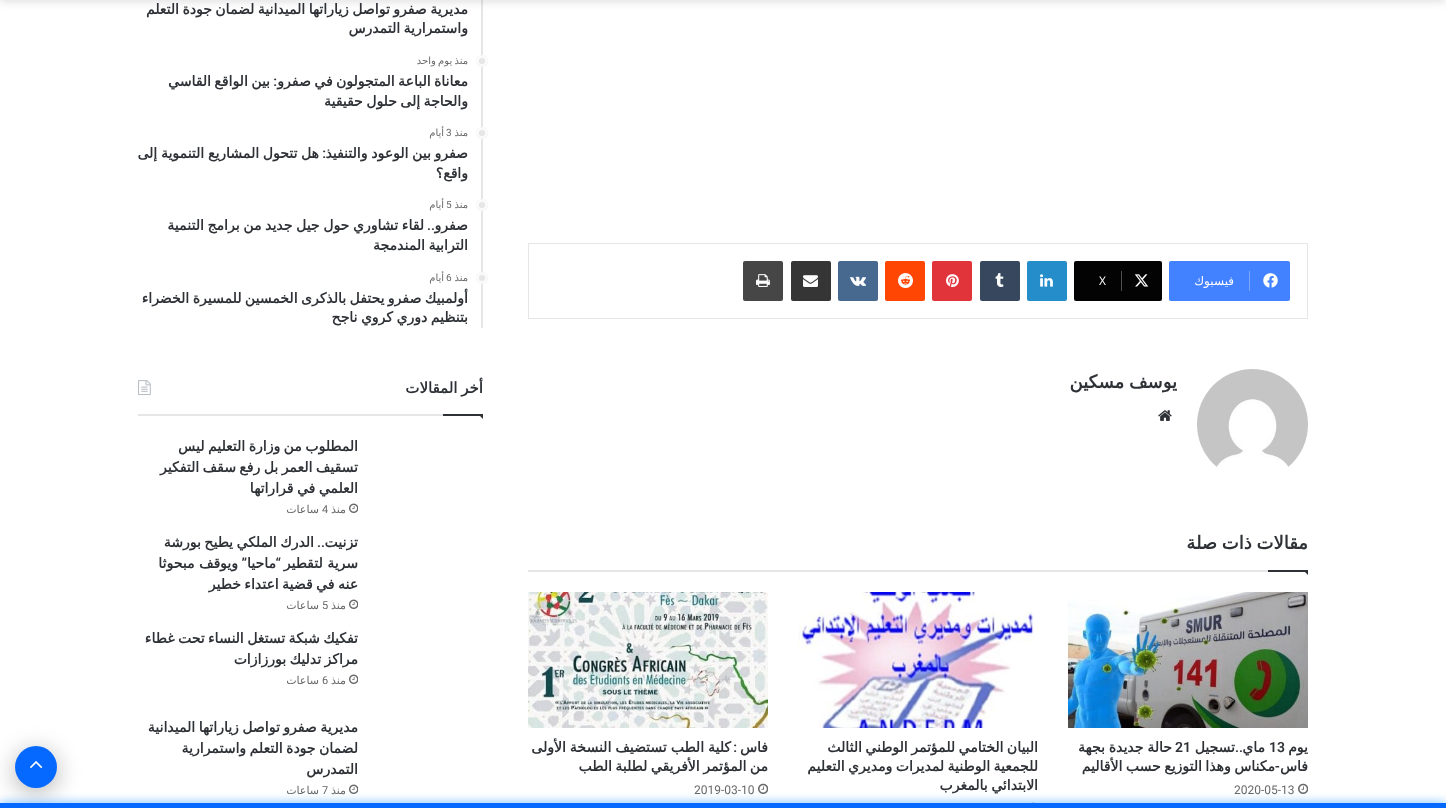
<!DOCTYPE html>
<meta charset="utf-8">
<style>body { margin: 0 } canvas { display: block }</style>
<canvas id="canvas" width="1446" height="808"></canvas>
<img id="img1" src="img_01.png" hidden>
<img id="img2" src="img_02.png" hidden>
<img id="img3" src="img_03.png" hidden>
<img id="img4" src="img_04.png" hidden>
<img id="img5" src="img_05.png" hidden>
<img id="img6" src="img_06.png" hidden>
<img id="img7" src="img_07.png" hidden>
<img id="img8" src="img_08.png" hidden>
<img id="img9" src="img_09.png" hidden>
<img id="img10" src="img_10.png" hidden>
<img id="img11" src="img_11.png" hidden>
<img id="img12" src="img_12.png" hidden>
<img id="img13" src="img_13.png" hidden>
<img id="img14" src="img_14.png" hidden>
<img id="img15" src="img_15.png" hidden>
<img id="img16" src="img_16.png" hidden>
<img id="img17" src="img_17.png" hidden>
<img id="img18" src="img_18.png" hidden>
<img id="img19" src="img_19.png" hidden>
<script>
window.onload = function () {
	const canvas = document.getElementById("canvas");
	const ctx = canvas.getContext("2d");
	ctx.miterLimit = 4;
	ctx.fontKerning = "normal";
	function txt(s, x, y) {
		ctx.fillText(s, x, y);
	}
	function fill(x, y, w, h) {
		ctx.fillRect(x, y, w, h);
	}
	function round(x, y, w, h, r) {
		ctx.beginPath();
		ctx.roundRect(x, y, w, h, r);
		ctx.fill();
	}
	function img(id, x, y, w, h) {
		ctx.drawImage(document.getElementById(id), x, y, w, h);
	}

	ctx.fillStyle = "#FFFFFF";
	fill(0, 0, 1446, 808);
	ctx.fillStyle = "#E6E6E6";
	fill(481, 0, 2, 328);
	ctx.fillStyle = "rgba(99, 99, 99, 0.2)";
	ctx.filter = "blur(4px)";
	ctx.beginPath();
	ctx.rect(0, -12, 1446, 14);
	ctx.fill();
	ctx.filter = "none";
	ctx.strokeStyle = "#E6E6E6";
	ctx.strokeRect(528.5, 243.5, 779, 75);
	ctx.fillStyle = "#4281FF";
	round(1169, 261, 121, 40, 2);
	img("img1", 1263, 273, 15, 15);
	ctx.fillStyle = "#7BA7FF";
	fill(1249, 271, 1, 20);
	ctx.fillStyle = "#030303";
	round(1074, 261, 88, 40, 2);
	img("img2", 1134, 274, 15, 13);
	ctx.fillStyle = "#4F4F4F";
	fill(1121, 271, 1, 20);
	ctx.fillStyle = "#258DC9";
	round(1027, 261, 40, 40, 2);
	img("img3", 1040, 274, 13, 13);
	ctx.fillStyle = "#37485E";
	round(980, 261, 40, 40, 2);
	img("img4", 995, 273, 9, 14);
	ctx.fillStyle = "#E1333A";
	round(932, 261, 40, 40, 2);
	img("img5", 946, 274, 13, 13);
	ctx.fillStyle = "#FF4703";
	round(885, 261, 40, 40, 2);
	img("img6", 898, 273, 15, 16);
	ctx.fillStyle = "#47688F";
	round(838, 261, 40, 40, 2);
	img("img7", 850, 276, 16, 10);
	ctx.fillStyle = "#353535";
	round(791, 261, 40, 40, 2);
	img("img8", 803, 275, 15, 12);
	ctx.fillStyle = "#464646";
	round(743, 261, 40, 40, 2);
	img("img9", 756, 274, 14, 13);
	img("img10", 1197, 369, 111, 98);
	img("img11", 1158, 410, 14, 11);
	ctx.fillStyle = "#E6E6E6";
	fill(528, 570, 740, 2);
	ctx.fillStyle = "#2E3136";
	ctx.beginPath();
	ctx.moveTo(1303, 570);
	ctx.lineTo(1308, 570);
	ctx.lineTo(1308, 575);
	ctx.closePath();
	ctx.fill();
	fill(1268, 570, 40, 2);
	img("img12", 1068, 592, 240, 136);
	img("img13", 1298, 783, 10, 11);
	img("img14", 798, 592, 237, 136);
	img("img15", 1031, 802, 4, 1);
	img("img16", 528, 592, 240, 136);
	img("img13", 758, 783, 10, 11);
	ctx.fillStyle = "#E6E6E6";
	ctx.beginPath();
	ctx.arc(482, 61, 6, 0, Math.PI * 2);
	ctx.fill();
	ctx.beginPath();
	ctx.arc(482, 61, 4.5, 0, Math.PI * 2);
	ctx.strokeStyle = "rgba(255, 255, 255, 0.8)";
	ctx.lineWidth = 3;
	ctx.stroke();
	ctx.beginPath();
	ctx.arc(482, 133, 6, 0, Math.PI * 2);
	ctx.fill();
	ctx.beginPath();
	ctx.arc(482, 133, 4.5, 0, Math.PI * 2);
	ctx.stroke();
	ctx.beginPath();
	ctx.arc(482, 205, 6, 0, Math.PI * 2);
	ctx.fill();
	ctx.beginPath();
	ctx.arc(482, 205, 4.5, 0, Math.PI * 2);
	ctx.stroke();
	ctx.beginPath();
	ctx.arc(482, 278, 6, 0, Math.PI * 2);
	ctx.fill();
	ctx.beginPath();
	ctx.arc(482, 278, 4.5, 0, Math.PI * 2);
	ctx.stroke();
	fill(138, 414, 305, 2);
	img("img17", 138, 380, 13, 16);
	ctx.fillStyle = "#2E3136";
	ctx.beginPath();
	ctx.moveTo(478, 414);
	ctx.lineTo(483, 414);
	ctx.lineTo(483, 419);
	ctx.closePath();
	ctx.fill();
	fill(443, 414, 40, 2);
	img("img18", 349, 503, 9, 10);
	img("img18", 349, 599, 9, 10);
	img("img18", 349, 674, 9, 10);
	img("img18", 349, 784, 9, 10);
	ctx.fillStyle = "rgba(0, 0, 0, 0.3)";
	ctx.filter = "blur(12.5px)";
	ctx.beginPath();
	ctx.roundRect(15, 751, 42, 42, 21);
	ctx.fill();
	ctx.filter = "none";
	ctx.fillStyle = "#0669FF";
	ctx.beginPath();
	ctx.arc(36, 767, 21, 0, Math.PI * 2);
	ctx.fill();
	img("img19", 30, 761, 13, 8);
	ctx.fillStyle = "rgba(0, 136, 255, 0.7)";
	ctx.filter = "blur(5px)";
	ctx.beginPath();
	ctx.rect(0, 803, 1446, 5);
	ctx.fill();
	ctx.filter = "none";
	ctx.fillStyle = "#0669FF";
	fill(0, 803, 1446, 5);
	ctx.direction = "rtl";
	ctx.font = "12px DejaVu Sans";
	ctx.fillStyle = "#FFFFFF";
	txt("فيسبوك", 1234, 285);
	ctx.direction = "ltr";
	ctx.font = "12px Open Sans";
	txt("X", 1099, 285);
	ctx.wordSpacing = "-1px";
	ctx.direction = "rtl";
	ctx.font = "bold 18px DejaVu Sans";
	ctx.fillStyle = "#2E3136";
	txt("يوسف مسكين", 1177, 388);
	txt("مقالات ذات صلة", 1308, 549);
	ctx.wordSpacing = "0px";
	ctx.font = "bold 14px DejaVu Sans";
	txt("يوم", 1308, 752);
	ctx.direction = "ltr";
	ctx.font = "600 14px Roboto";
	txt("13", 1269, 752);
	ctx.direction = "rtl";
	ctx.font = "bold 14px DejaVu Sans";
	txt("ماي", 1265, 752);
	ctx.font = "600 14px Roboto";
	txt("..", 1243, 752);
	ctx.font = "bold 14px DejaVu Sans";
	txt("تسجيل", 1235, 752);
	ctx.direction = "ltr";
	ctx.font = "600 14px Roboto";
	txt("21", 1175, 752);
	ctx.wordSpacing = "-0.5px";
	ctx.direction = "rtl";
	ctx.font = "bold 14px DejaVu Sans";
	txt("حالة جديدة بجهة", 1172, 752);
	ctx.wordSpacing = "0px";
	txt("فاس", 1308, 771);
	ctx.font = "600 14px Roboto";
	txt("-", 1280, 771);
	ctx.wordSpacing = "-1px";
	ctx.font = "bold 14px DejaVu Sans";
	txt("مكناس وهذا التوزيع حسب الأقاليم", 1275, 771);
	ctx.wordSpacing = "0px";
	ctx.direction = "ltr";
	ctx.font = "12px Roboto";
	ctx.fillStyle = "#686868";
	txt("2020-05-13", 1234, 794);
	ctx.wordSpacing = "-1px";
	ctx.direction = "rtl";
	ctx.font = "bold 14px DejaVu Sans";
	ctx.fillStyle = "#2E3136";
	txt("البيان الختامي للمؤتمر الوطني الثالث", 1038, 752);
	txt("للجمعية الوطنية لمديرات ومديري التعليم", 1038, 771);
	txt("الابتدائي بالمغرب", 1038, 790);
	ctx.wordSpacing = "0px";
	txt("فاس", 768, 752);
	ctx.font = "600 14px Roboto";
	txt(":", 737, 752);
	ctx.wordSpacing = "-0.5px";
	ctx.font = "bold 14px DejaVu Sans";
	txt("كلية الطب تستضيف النسخة الأولى", 731, 752);
	ctx.wordSpacing = "-1px";
	txt("من المؤتمر الأفريقي لطلبة الطب", 768, 771);
	ctx.wordSpacing = "0px";
	ctx.direction = "ltr";
	ctx.font = "12px Roboto";
	ctx.fillStyle = "#686868";
	txt("2019-03-10", 694, 794);
	ctx.wordSpacing = "-1px";
	ctx.direction = "rtl";
	ctx.font = "bold 14px DejaVu Sans";
	ctx.fillStyle = "#2E3136";
	txt("مديرية صفرو تواصل زياراتها الميدانية لضمان جودة التعلم", 468, 14);
	txt("واستمرارية التمدرس", 468, 33);
	ctx.font = "10px DejaVu Sans";
	ctx.fillStyle = "#686868";
	txt("منذ يوم واحد", 468, 64);
	ctx.font = "bold 14px DejaVu Sans";
	ctx.fillStyle = "#2E3136";
	txt("معاناة الباعة المتجولون في صفرو", 468, 86);
	ctx.wordSpacing = "0px";
	ctx.font = "600 14px Roboto";
	txt(":", 277, 86);
	ctx.wordSpacing = "-1px";
	ctx.font = "bold 14px DejaVu Sans";
	txt("بين الواقع القاسي", 270, 86);
	txt("والحاجة إلى حلول حقيقية", 468, 106);
	ctx.wordSpacing = "0px";
	ctx.font = "10px DejaVu Sans";
	ctx.fillStyle = "#686868";
	txt("منذ", 468, 136);
	ctx.direction = "ltr";
	ctx.font = "10px Roboto";
	txt("3", 446, 136);
	ctx.direction = "rtl";
	ctx.font = "10px DejaVu Sans";
	txt("أيام", 444, 136);
	ctx.wordSpacing = "-0.75px";
	ctx.font = "bold 14px DejaVu Sans";
	ctx.fillStyle = "#2E3136";
	txt("صفرو بين الوعود والتنفيذ", 468, 158);
	ctx.wordSpacing = "0px";
	ctx.font = "600 14px Roboto";
	txt(":", 326, 158);
	ctx.wordSpacing = "-0.75px";
	ctx.font = "bold 14px DejaVu Sans";
	txt("هل تتحول المشاريع التنموية إلى", 319, 158);
	ctx.wordSpacing = "0px";
	txt("واقع؟", 468, 178);
	ctx.font = "10px DejaVu Sans";
	ctx.fillStyle = "#686868";
	txt("منذ", 468, 208);
	ctx.direction = "ltr";
	ctx.font = "10px Roboto";
	txt("5", 446, 208);
	ctx.direction = "rtl";
	ctx.font = "10px DejaVu Sans";
	txt("أيام", 444, 208);
	ctx.font = "600 14px Roboto";
	ctx.fillStyle = "#2E3136";
	txt("..", 435, 230);
	ctx.font = "bold 14px DejaVu Sans";
	txt("صفرو", 468, 230);
	ctx.wordSpacing = "-0.75px";
	txt("لقاء تشاوري حول جيل جديد من برامج التنمية", 424, 230);
	ctx.wordSpacing = "-1px";
	txt("الترابية المندمجة", 468, 250);
	ctx.wordSpacing = "0px";
	ctx.font = "10px DejaVu Sans";
	ctx.fillStyle = "#686868";
	txt("منذ", 468, 281);
	ctx.direction = "ltr";
	ctx.font = "10px Roboto";
	txt("6", 446, 281);
	ctx.direction = "rtl";
	ctx.font = "10px DejaVu Sans";
	txt("أيام", 444, 281);
	ctx.wordSpacing = "-1px";
	ctx.font = "bold 14px DejaVu Sans";
	ctx.fillStyle = "#2E3136";
	txt("أولمبيك صفرو يحتفل بالذكرى الخمسين للمسيرة الخضراء", 468, 303);
	txt("بتنظيم دوري كروي ناجح", 468, 322);
	ctx.font = "bold 15px DejaVu Sans";
	txt("أخر المقالات", 483, 393);
	ctx.font = "bold 14px DejaVu Sans";
	txt("المطلوب من وزارة التعليم ليس", 358, 451);
	txt("تسقيف العمر بل رفع سقف التفكير", 358, 472);
	txt("العلمي في قراراتها", 358, 493);
	ctx.wordSpacing = "0px";
	ctx.font = "11px DejaVu Sans";
	ctx.fillStyle = "#686868";
	txt("منذ", 346, 513);
	ctx.direction = "ltr";
	ctx.font = "11px Roboto";
	txt("4", 322, 513);
	ctx.direction = "rtl";
	ctx.font = "11px DejaVu Sans";
	txt("ساعات", 319, 513);
	ctx.font = "bold 14px DejaVu Sans";
	ctx.fillStyle = "#2E3136";
	txt("تزنيت", 358, 547);
	ctx.font = "600 14px Roboto";
	txt("..", 325, 547);
	ctx.wordSpacing = "-1px";
	ctx.font = "bold 14px DejaVu Sans";
	txt("الدرك الملكي يطيح بورشة", 314, 547);
	ctx.wordSpacing = "0px";
	txt("سرية لتقطير", 358, 568);
	ctx.font = "600 14px Roboto";
	txt("“", 281, 568);
	ctx.font = "bold 14px DejaVu Sans";
	txt("ماحيا", 276, 568);
	ctx.font = "600 14px Roboto";
	txt("”", 247, 568);
	ctx.font = "bold 14px DejaVu Sans";
	txt("ويوقف مبحوثا", 238, 568);
	ctx.wordSpacing = "-1px";
	txt("عنه في قضية اعتداء خطير", 358, 589);
	ctx.wordSpacing = "0px";
	ctx.font = "11px DejaVu Sans";
	ctx.fillStyle = "#686868";
	txt("منذ", 346, 609);
	ctx.direction = "ltr";
	ctx.font = "11px Roboto";
	txt("5", 322, 609);
	ctx.direction = "rtl";
	ctx.font = "11px DejaVu Sans";
	txt("ساعات", 319, 609);
	ctx.wordSpacing = "-1px";
	ctx.font = "bold 14px DejaVu Sans";
	ctx.fillStyle = "#2E3136";
	txt("تفكيك شبكة تستغل النساء تحت غطاء", 358, 643);
	txt("مراكز تدليك بورزازات", 358, 664);
	ctx.wordSpacing = "0px";
	ctx.font = "11px DejaVu Sans";
	ctx.fillStyle = "#686868";
	txt("منذ", 346, 684);
	ctx.direction = "ltr";
	ctx.font = "11px Roboto";
	txt("6", 322, 684);
	ctx.direction = "rtl";
	ctx.font = "11px DejaVu Sans";
	txt("ساعات", 319, 684);
	ctx.wordSpacing = "-1px";
	ctx.font = "bold 14px DejaVu Sans";
	ctx.fillStyle = "#2E3136";
	txt("مديرية صفرو تواصل زياراتها الميدانية", 358, 732);
	txt("لضمان جودة التعلم واستمرارية", 358, 753);
	ctx.wordSpacing = "0px";
	txt("التمدرس", 358, 774);
	ctx.font = "11px DejaVu Sans";
	ctx.fillStyle = "#686868";
	txt("منذ", 346, 794);
	ctx.direction = "ltr";
	ctx.font = "11px Roboto";
	txt("7", 322, 794);
	ctx.direction = "rtl";
	ctx.font = "11px DejaVu Sans";
	txt("ساعات", 319, 794);
};
</script>
